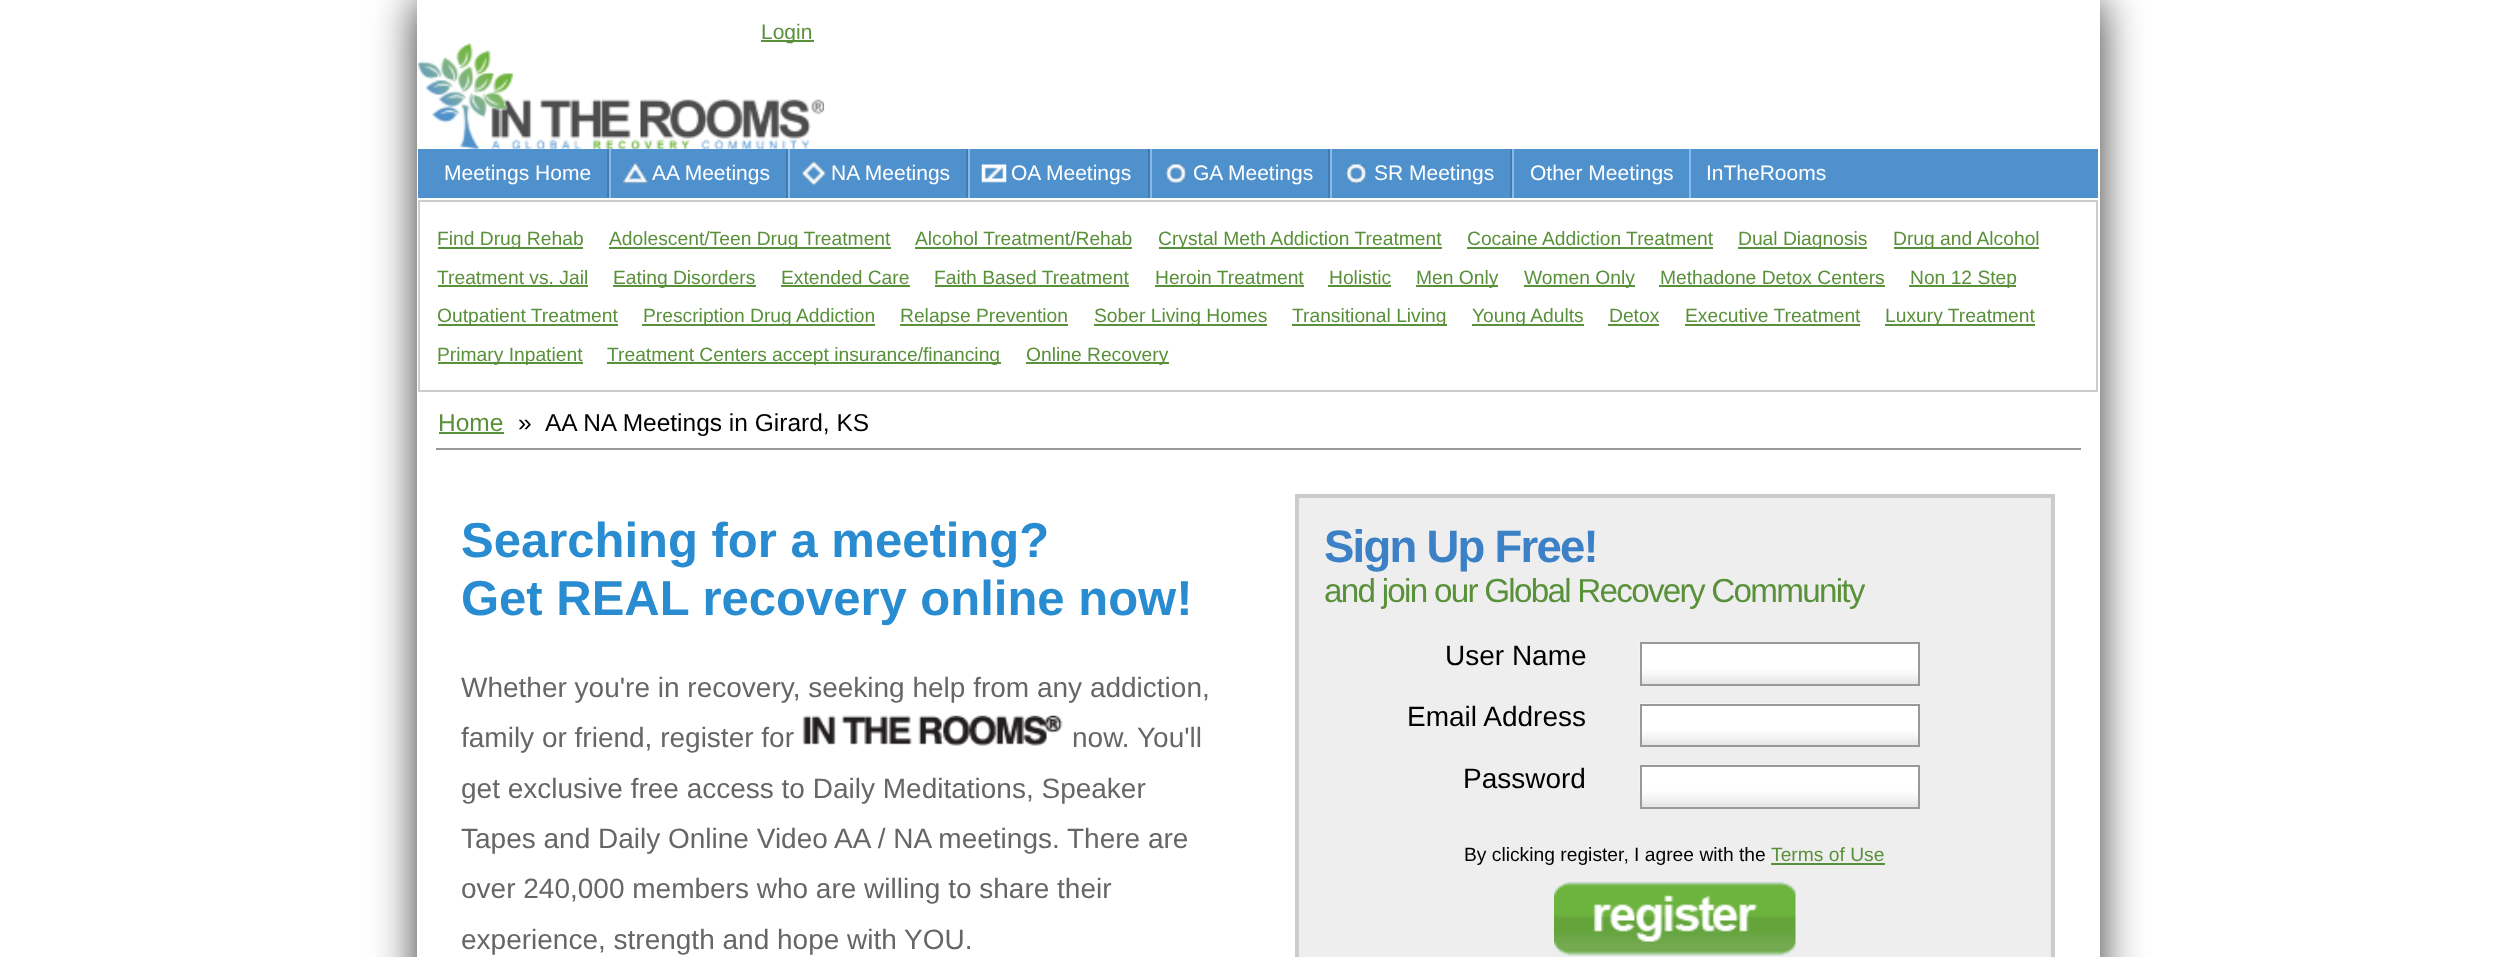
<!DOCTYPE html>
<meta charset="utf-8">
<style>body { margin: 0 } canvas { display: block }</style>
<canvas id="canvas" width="2514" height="957"></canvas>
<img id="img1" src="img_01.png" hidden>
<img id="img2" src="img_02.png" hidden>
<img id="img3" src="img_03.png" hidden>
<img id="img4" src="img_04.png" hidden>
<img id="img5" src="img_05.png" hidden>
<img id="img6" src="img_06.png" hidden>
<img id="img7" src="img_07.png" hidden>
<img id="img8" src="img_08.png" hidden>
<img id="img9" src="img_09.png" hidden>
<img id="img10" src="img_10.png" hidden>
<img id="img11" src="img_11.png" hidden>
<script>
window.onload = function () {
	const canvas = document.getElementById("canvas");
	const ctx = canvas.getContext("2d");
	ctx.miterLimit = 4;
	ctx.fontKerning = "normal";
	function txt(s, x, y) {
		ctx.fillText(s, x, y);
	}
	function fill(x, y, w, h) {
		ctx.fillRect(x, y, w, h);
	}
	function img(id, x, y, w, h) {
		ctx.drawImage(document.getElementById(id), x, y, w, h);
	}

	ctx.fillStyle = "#FFFFFF";
	fill(0, 0, 2514, 957);
	ctx.save();
	ctx.beginPath();
	ctx.moveTo(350, 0);
	ctx.lineTo(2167, 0);
	ctx.lineTo(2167, 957);
	ctx.lineTo(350, 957);
	ctx.closePath();
	ctx.moveTo(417, 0);
	ctx.lineTo(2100, 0);
	ctx.lineTo(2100, 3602);
	ctx.lineTo(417, 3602);
	ctx.closePath();
	ctx.clip("evenodd");
	ctx.fillStyle = "#333333";
	ctx.filter = "blur(22px)";
	ctx.beginPath();
	ctx.rect(417, 0, 1683, 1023);
	ctx.fill();
	ctx.filter = "none";
	ctx.restore();
	ctx.fillStyle = "#59903A";
	fill(761, 40, 53, 2);
	img("img1", 418, 43, 407, 106);
	ctx.fillStyle = "#4F91CD";
	fill(418, 149, 1680, 49);
	ctx.fillStyle = "#407CB2";
	fill(607, 149, 2, 49);
	img("img2", 623, 162, 25, 22);
	fill(786, 149, 2, 49);
	ctx.fillStyle = "#87B9EA";
	fill(609, 149, 2, 49);
	img("img3", 801, 161, 25, 25);
	ctx.fillStyle = "#407CB2";
	fill(966, 149, 2, 49);
	ctx.fillStyle = "#87B9EA";
	fill(788, 149, 2, 49);
	img("img4", 981, 164, 26, 19);
	ctx.fillStyle = "#407CB2";
	fill(1148, 149, 2, 49);
	ctx.fillStyle = "#87B9EA";
	fill(968, 149, 2, 49);
	img("img5", 1165, 162, 22, 22);
	ctx.fillStyle = "#407CB2";
	fill(1328, 149, 2, 49);
	ctx.fillStyle = "#87B9EA";
	fill(1150, 149, 2, 49);
	img("img6", 1345, 162, 22, 22);
	ctx.fillStyle = "#407CB2";
	fill(1510, 149, 2, 49);
	ctx.fillStyle = "#87B9EA";
	fill(1330, 149, 2, 49);
	fill(1512, 149, 2, 49);
	fill(1689, 149, 2, 49);
	ctx.strokeStyle = "#CCCCCC";
	ctx.lineWidth = 2;
	ctx.strokeRect(419, 201, 1678, 190);
	ctx.fillStyle = "#59903A";
	fill(438, 247, 145, 2);
	fill(609, 247, 282, 2);
	fill(915, 247, 217, 2);
	fill(1159, 247, 283, 2);
	fill(1467, 247, 246, 2);
	fill(1738, 247, 129, 2);
	fill(1894, 247, 145, 2);
	fill(438, 285, 150, 2);
	fill(613, 285, 143, 2);
	fill(781, 285, 129, 2);
	fill(935, 285, 194, 2);
	fill(1155, 285, 149, 2);
	fill(1328, 285, 63, 2);
	fill(1416, 285, 82, 2);
	fill(1524, 285, 111, 2);
	fill(1659, 285, 226, 2);
	fill(1909, 285, 107, 2);
	fill(438, 324, 180, 2);
	fill(642, 324, 233, 2);
	fill(900, 324, 168, 2);
	fill(1094, 324, 173, 2);
	fill(1292, 324, 155, 2);
	fill(1472, 324, 112, 2);
	fill(1608, 324, 51, 2);
	fill(1685, 324, 175, 2);
	fill(1885, 324, 150, 2);
	fill(438, 362, 145, 2);
	fill(607, 362, 394, 2);
	fill(1026, 362, 143, 2);
	ctx.fillStyle = "#999999";
	fill(436, 448, 1645, 2);
	ctx.fillStyle = "#59903A";
	fill(439, 432, 65, 2);
	img("img7", 802, 715, 261, 31);
	ctx.fillStyle = "#EEEEEE";
	ctx.beginPath();
	ctx.rect(1297, 496, 756, 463);
	ctx.fill();
	ctx.lineWidth = 4;
	ctx.stroke();
	img("img8", 1639, 642, 279, 42);
	ctx.strokeStyle = "#999999";
	ctx.lineWidth = 2;
	ctx.strokeRect(1641, 643, 278, 42);
	img("img9", 1639, 703, 281, 43);
	ctx.strokeRect(1641, 705, 278, 41);
	img("img10", 1639, 764, 281, 43);
	ctx.strokeRect(1641, 766, 278, 42);
	ctx.fillStyle = "#59903A";
	fill(1771, 863, 114, 2);
	img("img11", 1554, 882, 242, 74);
	ctx.font = "21px Liberation Sans";
	txt("Login", 761, 39);
	ctx.fillStyle = "#FFFFFF";
	txt("Meetings Home", 444, 180);
	txt("AA Meetings", 652, 180);
	txt("NA Meetings", 831, 180);
	txt("OA Meetings", 1011, 180);
	txt("GA Meetings", 1193, 180);
	txt("SR Meetings", 1374, 180);
	txt("Other Meetings", 1530, 180);
	txt("InTheRooms", 1706, 180);
	ctx.font = "19.25px Liberation Sans";
	ctx.fillStyle = "#59903A";
	txt("Find Drug Rehab", 437, 245);
	txt("Adolescent/Teen Drug Treatment", 609, 245);
	txt("Alcohol Treatment/Rehab", 915, 245);
	txt("Crystal Meth Addiction Treatment", 1158, 245);
	txt("Cocaine Addiction Treatment", 1467, 245);
	txt("Dual Diagnosis", 1738, 245);
	txt("Drug and Alcohol", 1893, 245);
	txt("Treatment vs. Jail", 437, 284);
	txt("Eating Disorders", 613, 284);
	txt("Extended Care", 781, 284);
	txt("Faith Based Treatment", 934, 284);
	txt("Heroin Treatment", 1155, 284);
	txt("Holistic", 1329, 284);
	txt("Men Only", 1416, 284);
	txt("Women Only", 1524, 284);
	txt("Methadone Detox Centers", 1660, 284);
	txt("Non 12 Step", 1910, 284);
	txt("Outpatient Treatment", 437, 322);
	txt("Prescription Drug Addiction", 643, 322);
	txt("Relapse Prevention", 900, 322);
	txt("Sober Living Homes", 1094, 322);
	txt("Transitional Living", 1292, 322);
	txt("Young Adults", 1472, 322);
	txt("Detox", 1609, 322);
	txt("Executive Treatment", 1685, 322);
	txt("Luxury Treatment", 1885, 322);
	txt("Primary Inpatient", 437, 361);
	txt("Treatment Centers accept insurance/financing", 607, 361);
	txt("Online Recovery", 1026, 361);
	ctx.font = "24.5px Liberation Sans";
	txt("Home", 438, 431);
	ctx.fillStyle = "#000000";
	txt("»", 518, 431);
	txt("AA NA Meetings in Girard, KS", 545, 431);
	ctx.font = "bold 49px Liberation Sans";
	ctx.fillStyle = "#298CD1";
	txt("Searching for a meeting?", 461, 557);
	txt("Get REAL recovery online now!", 461, 615);
	ctx.font = "28px Liberation Sans";
	ctx.fillStyle = "#666666";
	txt("Whether you're in recovery, seeking help from any addiction,", 461, 697);
	txt("family or friend, register for", 461, 747);
	txt("now.", 1072, 747);
	txt("You'll", 1137, 747);
	txt("get exclusive free access to Daily Meditations, Speaker", 461, 798);
	txt("Tapes and Daily Online Video AA / NA meetings.", 461, 848);
	txt("There are", 1067, 848);
	txt("over 240,000 members who are willing to share their", 461, 898);
	txt("experience, strength and hope with YOU.", 461, 949);
	ctx.letterSpacing = "-1.75px";
	ctx.font = "bold 45.5px Liberation Sans";
	ctx.fillStyle = "#3C80C6";
	txt("Sign Up Free!", 1324, 562);
	ctx.font = "33.25px Liberation Sans";
	ctx.fillStyle = "#59903A";
	txt("and join our Global Recovery Community", 1324, 602);
	ctx.letterSpacing = "0px";
	ctx.font = "28px Liberation Sans";
	ctx.fillStyle = "#000000";
	txt("User Name", 1445, 665);
	txt("Email Address", 1407, 726);
	txt("Password", 1463, 788);
	ctx.font = "19.25px Liberation Sans";
	txt("By clicking register, I agree with the", 1464, 861);
	ctx.fillStyle = "#59903A";
	txt("Terms of Use", 1771, 861);
};
</script>
